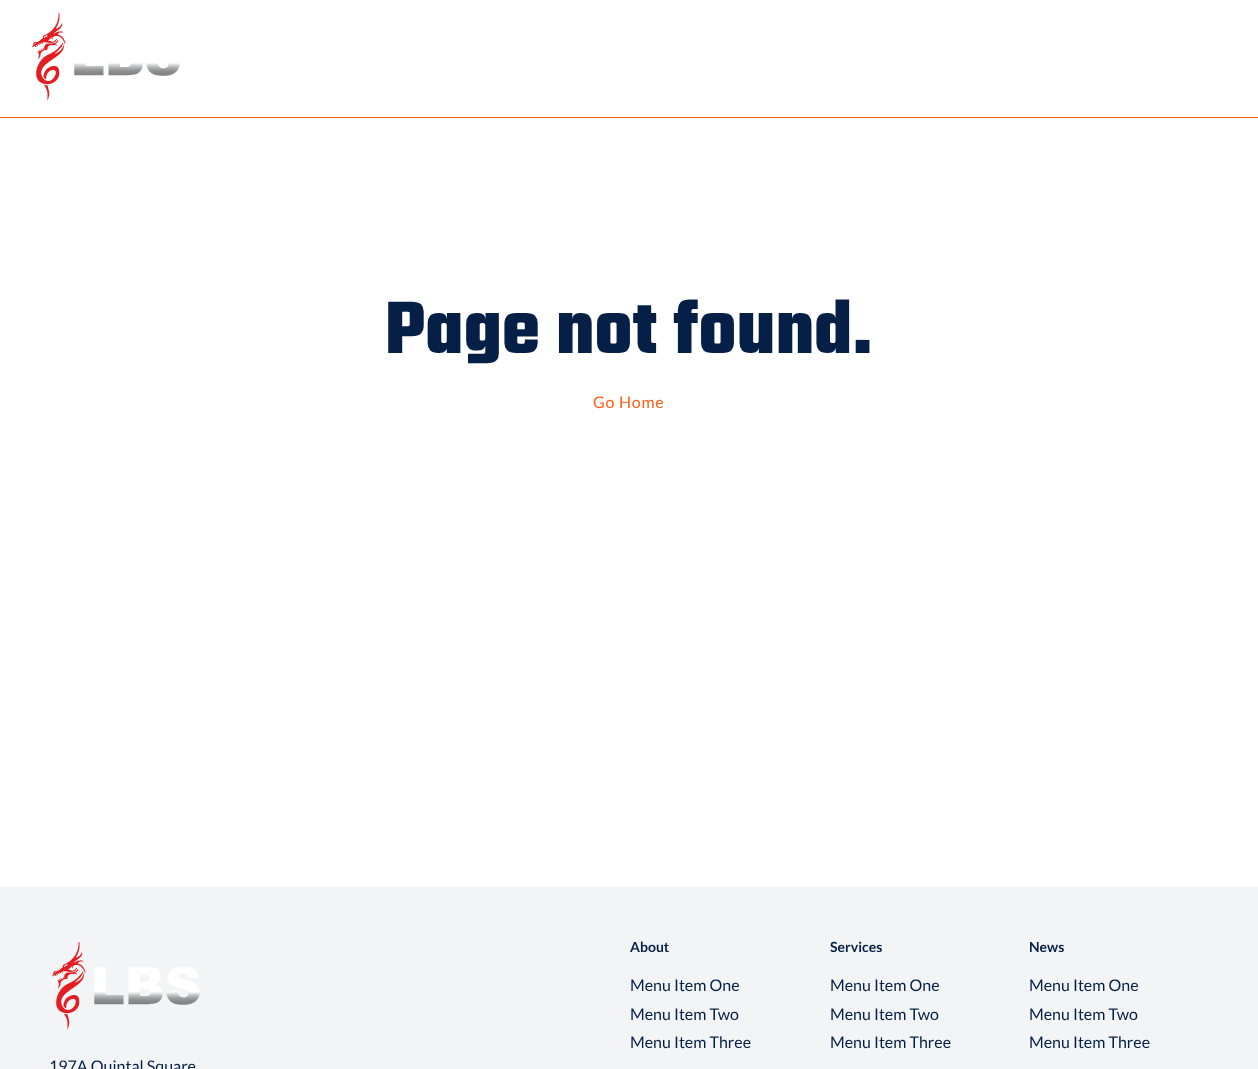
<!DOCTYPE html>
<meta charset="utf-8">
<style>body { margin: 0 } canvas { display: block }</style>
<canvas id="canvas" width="1258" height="1069"></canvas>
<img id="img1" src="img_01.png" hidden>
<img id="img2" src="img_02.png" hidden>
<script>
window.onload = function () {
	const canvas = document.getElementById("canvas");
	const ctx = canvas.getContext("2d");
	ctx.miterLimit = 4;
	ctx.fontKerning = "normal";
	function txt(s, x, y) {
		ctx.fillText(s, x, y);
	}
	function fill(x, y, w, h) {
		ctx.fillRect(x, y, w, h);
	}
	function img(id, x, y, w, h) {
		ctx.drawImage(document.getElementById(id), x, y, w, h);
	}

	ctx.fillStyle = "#FFFFFF";
	fill(0, 0, 1258, 1069);
	ctx.fillStyle = "#FF5E14";
	fill(0, 117, 1258, 1);
	img("img1", 32, 13, 148, 88);
	ctx.fillStyle = "#F2F4F6";
	fill(0, 887, 1258, 182);
	img("img2", 49, 942, 151, 88);
	ctx.font = "bold 80px Teko";
	ctx.fillStyle = "#051F46";
	txt("Page not found.", 385, 353);
	ctx.letterSpacing = "0.75px";
	ctx.font = "16px Lato";
	ctx.fillStyle = "#FF5E14";
	txt("Go Home", 593, 408);
	ctx.letterSpacing = "0px";
	ctx.font = "bold 14px Lato";
	ctx.fillStyle = "#051F46";
	txt("About", 630, 952);
	ctx.font = "16px Lato";
	txt("Menu Item One", 630, 991);
	txt("Menu Item Two", 630, 1020);
	txt("Menu Item Three", 630, 1048);
	ctx.font = "bold 14px Lato";
	txt("Services", 830, 952);
	ctx.font = "16px Lato";
	txt("Menu Item One", 830, 991);
	txt("Menu Item Two", 830, 1020);
	txt("Menu Item Three", 830, 1048);
	ctx.font = "bold 14px Lato";
	txt("News", 1029, 952);
	ctx.font = "16px Lato";
	txt("Menu Item One", 1029, 991);
	txt("Menu Item Two", 1029, 1020);
	txt("Menu Item Three", 1029, 1048);
	txt("197A Quintal Square", 49, 1072);
};
</script>
